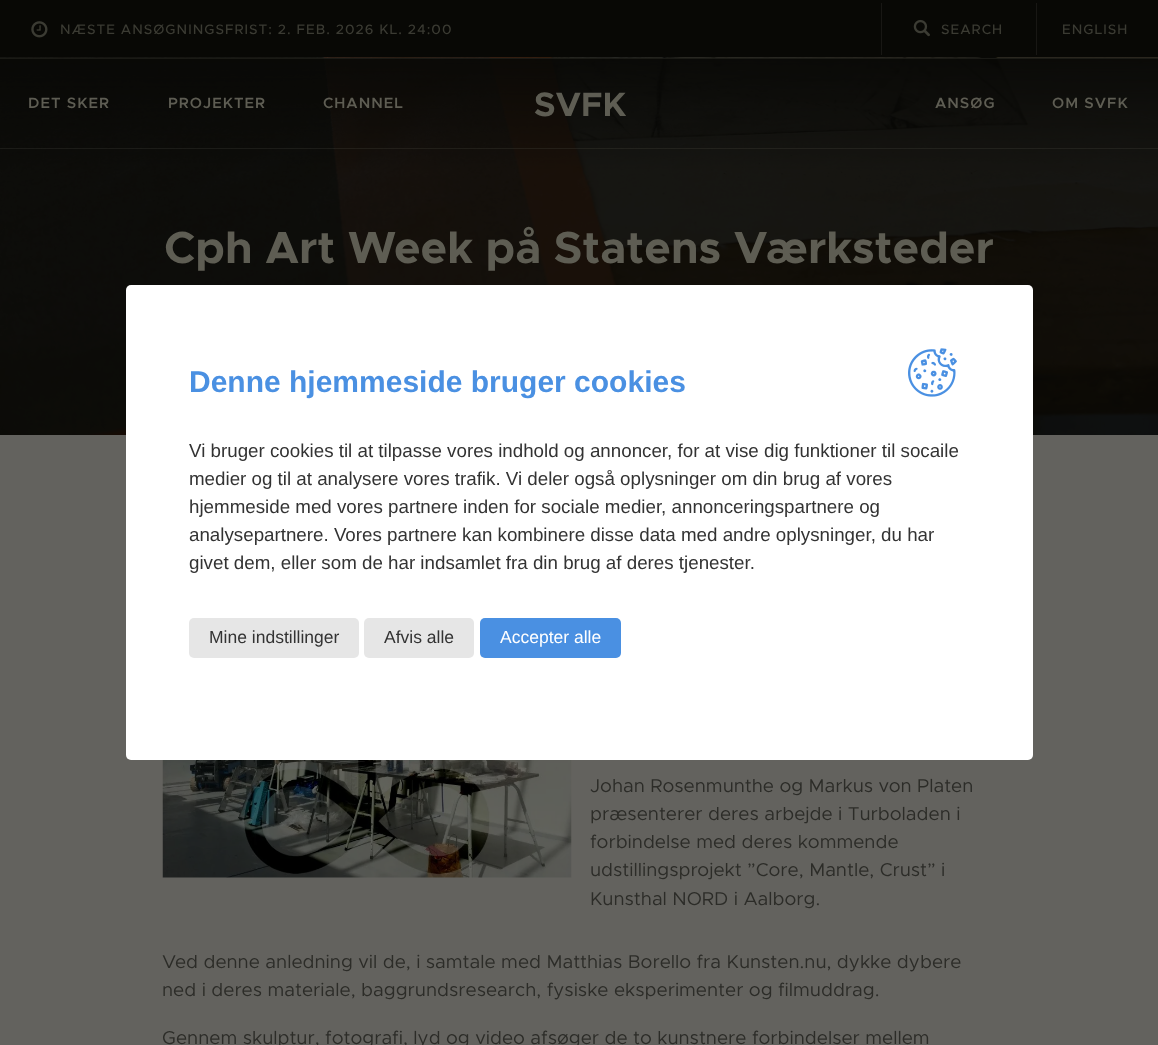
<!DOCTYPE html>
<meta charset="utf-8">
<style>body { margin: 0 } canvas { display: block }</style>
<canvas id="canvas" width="1158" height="1045"></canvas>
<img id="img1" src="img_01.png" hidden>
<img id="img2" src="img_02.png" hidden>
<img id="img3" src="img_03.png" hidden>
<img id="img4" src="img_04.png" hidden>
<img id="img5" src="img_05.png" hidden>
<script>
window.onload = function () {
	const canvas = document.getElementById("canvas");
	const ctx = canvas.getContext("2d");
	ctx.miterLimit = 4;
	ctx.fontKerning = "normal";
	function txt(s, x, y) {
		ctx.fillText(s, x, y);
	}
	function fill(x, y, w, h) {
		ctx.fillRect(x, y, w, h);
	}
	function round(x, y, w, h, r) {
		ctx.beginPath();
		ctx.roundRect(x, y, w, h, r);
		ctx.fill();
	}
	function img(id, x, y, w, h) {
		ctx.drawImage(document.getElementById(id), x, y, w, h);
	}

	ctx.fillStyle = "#63625E";
	fill(0, 0, 1158, 1045);
	ctx.fillStyle = "#080805";
	fill(0, 0, 1158, 58);
	img("img1", 31, 21, 17, 17);
	ctx.fillStyle = "#181714";
	fill(1036, 3, 1, 52);
	fill(881, 3, 1, 52);
	img("img2", 913, 19, 17, 18);
	img("img3", 0, 57, 1158, 378);
	ctx.fillStyle = "rgba(94, 93, 83, 0.2)";
	fill(0, 58, 1158, 1);
	fill(0, 148, 1158, 1);
	img("img4", 162, 760, 410, 118);
	ctx.fillStyle = "#FFFFFF";
	round(126, 285, 907, 475, 5);
	img("img5", 908, 348, 49, 49);
	ctx.fillStyle = "#E6E6E6";
	round(189, 618, 170, 40, 5);
	round(364, 618, 110, 40, 5);
	ctx.fillStyle = "#4A90E2";
	round(480, 618, 141, 40, 5);
	ctx.letterSpacing = "1px";
	ctx.font = "500 13.75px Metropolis";
	ctx.fillStyle = "#3B3B33";
	txt("NÆSTE ANSØGNINGSFRIST: 2. FEB. 2026 KL. 24:00", 60, 34);
	txt("SEARCH", 941, 34);
	txt("ENGLISH", 1062, 34);
	ctx.font = "600 15px Metropolis";
	ctx.fillStyle = "#5E5D53";
	txt("DET SKER", 28, 108);
	txt("PROJEKTER", 168, 108);
	txt("CHANNEL", 323, 108);
	ctx.letterSpacing = "0px";
	ctx.font = "bold 34px Metropolis";
	txt("SVFK", 534, 116);
	ctx.letterSpacing = "1px";
	ctx.font = "600 15px Metropolis";
	txt("ANSØG", 935, 108);
	txt("OM SVFK", 1052, 108);
	ctx.letterSpacing = "0px";
	ctx.font = "bold 45px Metropolis";
	txt("Cph Art Week på Statens Værksteder", 164, 263);
	ctx.font = "18.75px Metropolis";
	ctx.fillStyle = "#2C2C28";
	txt("Johan Rosenmunthe og Markus von Platen", 590, 792);
	txt("præsenterer deres arbejde i Turboladen i", 590, 820);
	txt("forbindelse med deres kommende", 590, 848);
	txt("udstillingsprojekt ”Core, Mantle, Crust” i", 590, 876);
	txt("Kunsthal NORD i Aalborg.", 590, 905);
	txt("Ved denne anledning vil de, i samtale med Matthias Borello fra Kunsten.nu, dykke dybere", 162, 968);
	txt("ned i deres materiale, baggrundsresearch, fysiske eksperimenter og filmuddrag.", 162, 996);
	txt("Gennem skulptur, fotografi, lyd og video afsøger de to kunstnere forbindelser mellem", 162, 1044);
	ctx.font = "bold 30px Liberation Sans";
	ctx.fillStyle = "#4A90E2";
	txt("Denne hjemmeside bruger cookies", 189, 392);
	ctx.font = "18.75px Liberation Sans";
	ctx.fillStyle = "#333333";
	txt("Vi bruger cookies til at tilpasse vores indhold og annoncer, for at vise dig funktioner til socaile", 189, 457);
	txt("medier og til at analysere vores trafik. Vi deler også oplysninger om din brug af vores", 189, 485);
	txt("hjemmeside med vores partnere inden for sociale medier, annonceringspartnere og", 189, 513);
	txt("analysepartnere. Vores partnere kan kombinere disse data med andre oplysninger, du har", 189, 541);
	txt("givet dem, eller som de har indsamlet fra din brug af deres tjenester.", 189, 569);
	ctx.font = "17.5px Liberation Sans";
	txt("Mine indstillinger", 209, 643);
	txt("Afvis alle", 384, 643);
	ctx.fillStyle = "#FFFFFF";
	txt("Accepter alle", 500, 643);
};
</script>
